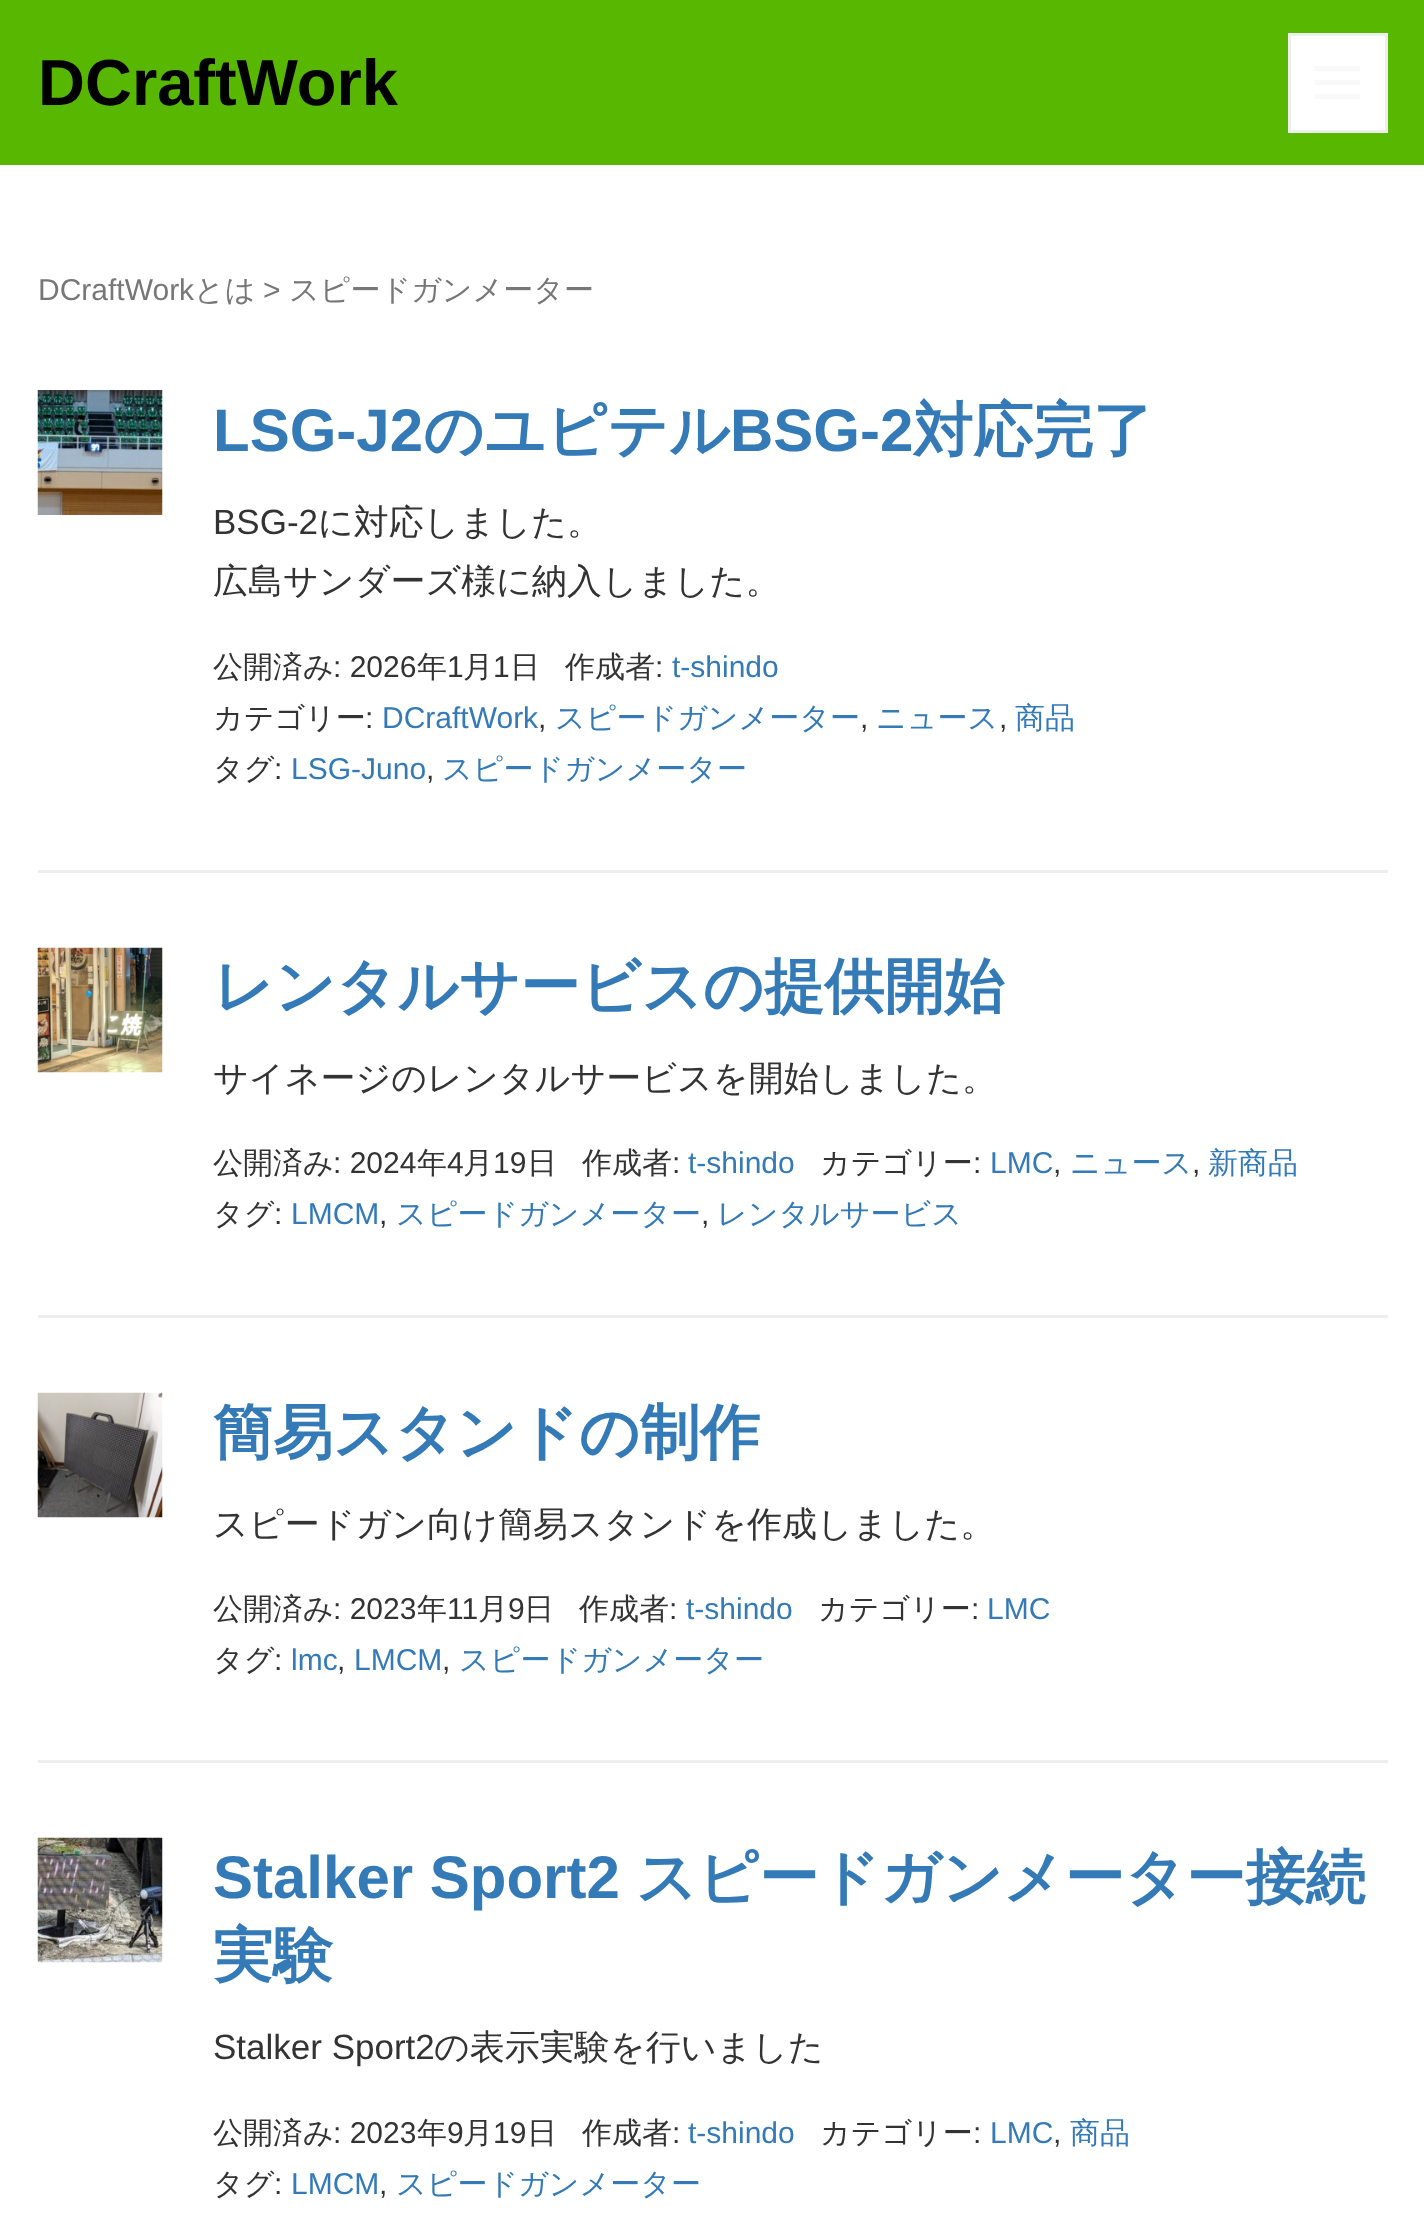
<!DOCTYPE html>
<meta charset="utf-8">
<style>body { margin: 0 } canvas { display: block }</style>
<canvas id="canvas" width="1424" height="2229"></canvas>
<img id="img1" src="img_01.png" hidden>
<img id="img2" src="img_02.png" hidden>
<img id="img3" src="img_03.png" hidden>
<img id="img4" src="img_04.png" hidden>
<script>
window.onload = function () {
	const canvas = document.getElementById("canvas");
	const ctx = canvas.getContext("2d");
	ctx.miterLimit = 4;
	ctx.fontKerning = "normal";
	function txt(s, x, y) {
		ctx.fillText(s, x, y);
	}
	function fill(x, y, w, h) {
		ctx.fillRect(x, y, w, h);
	}
	function img(id, x, y, w, h) {
		ctx.drawImage(document.getElementById(id), x, y, w, h);
	}

	ctx.fillStyle = "#FFFFFF";
	fill(0, 0, 1424, 2229);
	ctx.fillStyle = "#58B700";
	fill(0, 0, 1424, 165);
	ctx.fillStyle = "#FFFFFF";
	ctx.beginPath();
	ctx.rect(1289.5, 34.5, 97, 97);
	ctx.fill();
	ctx.strokeStyle = "#EEEEEE";
	ctx.lineWidth = 3;
	ctx.stroke();
	ctx.fillStyle = "#F9F9F9";
	ctx.beginPath();
	ctx.moveTo(1315, 99);
	ctx.lineTo(1315, 94);
	ctx.lineTo(1360, 94);
	ctx.lineTo(1360, 99);
	ctx.closePath();
	ctx.moveTo(1315, 66);
	ctx.lineTo(1360, 66);
	ctx.lineTo(1360, 71);
	ctx.lineTo(1315, 71);
	ctx.closePath();
	ctx.moveTo(1315, 85);
	ctx.lineTo(1315, 80);
	ctx.lineTo(1360, 80);
	ctx.lineTo(1360, 85);
	ctx.closePath();
	ctx.fill();
	ctx.fillStyle = "#EEEEEE";
	fill(38, 870, 1350, 3);
	img("img1", 37, 390, 126, 125);
	fill(38, 1315, 1350, 3);
	img("img2", 37, 947, 126, 126);
	fill(38, 1760, 1350, 3);
	img("img3", 37, 1392, 126, 126);
	img("img4", 37, 1837, 126, 126);
	ctx.font = "bold 65px Liberation Sans";
	ctx.fillStyle = "#000000";
	txt("DCraftWork", 38, 105);
	ctx.font = "30px Liberation Sans";
	ctx.fillStyle = "#777777";
	txt("DCraftWork", 38, 300);
	ctx.font = "500 30px WenQuanYi Zen Hei";
	txt("とは", 194, 300);
	ctx.font = "30px Liberation Sans";
	txt(">", 263, 300);
	ctx.font = "500 30px WenQuanYi Zen Hei";
	txt("スピードガンメーター", 289, 300);
	ctx.font = "bold 60px Liberation Sans";
	ctx.fillStyle = "#337AB7";
	txt("LSG-J2", 213, 451);
	ctx.font = "bold 60px WenQuanYi Zen Hei";
	txt("のユピテル", 423, 451);
	ctx.font = "bold 60px Liberation Sans";
	txt("BSG-2", 730, 451);
	ctx.font = "bold 60px WenQuanYi Zen Hei";
	txt("対応完了", 913, 451);
	ctx.font = "35px Liberation Sans";
	ctx.fillStyle = "#333333";
	txt("BSG-2", 213, 534);
	ctx.font = "500 35px WenQuanYi Zen Hei";
	txt("に対応しました。", 318, 534);
	txt("広島サンダーズ様に納入しました。", 213, 593);
	ctx.font = "500 30px WenQuanYi Zen Hei";
	txt("公開済み", 213, 677);
	ctx.font = "30px Liberation Sans";
	txt(": 2026", 333, 677);
	ctx.font = "500 30px WenQuanYi Zen Hei";
	txt("年", 417, 677);
	ctx.font = "30px Liberation Sans";
	txt("1", 447, 677);
	ctx.font = "500 30px WenQuanYi Zen Hei";
	txt("月", 463, 677);
	ctx.font = "30px Liberation Sans";
	txt("1", 493, 677);
	ctx.font = "500 30px WenQuanYi Zen Hei";
	txt("日", 510, 677);
	txt("作成者", 565, 677);
	ctx.font = "30px Liberation Sans";
	txt(":", 655, 677);
	ctx.fillStyle = "#337AB7";
	txt("t-shindo", 672, 677);
	ctx.font = "500 30px WenQuanYi Zen Hei";
	ctx.fillStyle = "#333333";
	txt("カテゴリー", 213, 728);
	ctx.font = "30px Liberation Sans";
	txt(":", 365, 728);
	ctx.fillStyle = "#337AB7";
	txt("DCraftWork", 382, 728);
	ctx.fillStyle = "#333333";
	txt(",", 538, 728);
	ctx.font = "500 30px WenQuanYi Zen Hei";
	ctx.fillStyle = "#337AB7";
	txt("スピードガンメーター", 555, 728);
	ctx.font = "30px Liberation Sans";
	ctx.fillStyle = "#333333";
	txt(",", 860, 728);
	ctx.font = "500 30px WenQuanYi Zen Hei";
	ctx.fillStyle = "#337AB7";
	txt("ニュース", 876, 728);
	ctx.font = "30px Liberation Sans";
	ctx.fillStyle = "#333333";
	txt(",", 999, 728);
	ctx.font = "500 30px WenQuanYi Zen Hei";
	ctx.fillStyle = "#337AB7";
	txt("商品", 1015, 728);
	ctx.fillStyle = "#333333";
	txt("タグ", 213, 779);
	ctx.font = "30px Liberation Sans";
	txt(":", 274, 779);
	ctx.fillStyle = "#337AB7";
	txt("LSG-Juno", 291, 779);
	ctx.fillStyle = "#333333";
	txt(",", 426, 779);
	ctx.font = "500 30px WenQuanYi Zen Hei";
	ctx.fillStyle = "#337AB7";
	txt("スピードガンメーター", 442, 779);
	ctx.font = "bold 60px WenQuanYi Zen Hei";
	txt("レンタルサービスの提供開始", 213, 1007);
	ctx.font = "500 35px WenQuanYi Zen Hei";
	ctx.fillStyle = "#333333";
	txt("サイネージのレンタルサービスを開始しました。", 213, 1090);
	ctx.font = "500 30px WenQuanYi Zen Hei";
	txt("公開済み", 213, 1173);
	ctx.font = "30px Liberation Sans";
	txt(": 2024", 333, 1173);
	ctx.font = "500 30px WenQuanYi Zen Hei";
	txt("年", 417, 1173);
	ctx.font = "30px Liberation Sans";
	txt("4", 447, 1173);
	ctx.font = "500 30px WenQuanYi Zen Hei";
	txt("月", 463, 1173);
	ctx.font = "30px Liberation Sans";
	txt("19", 493, 1173);
	ctx.font = "500 30px WenQuanYi Zen Hei";
	txt("日", 527, 1173);
	txt("作成者", 582, 1173);
	ctx.font = "30px Liberation Sans";
	txt(":", 672, 1173);
	ctx.fillStyle = "#337AB7";
	txt("t-shindo", 688, 1173);
	ctx.font = "500 30px WenQuanYi Zen Hei";
	ctx.fillStyle = "#333333";
	txt("カテゴリー", 820, 1173);
	ctx.font = "30px Liberation Sans";
	txt(":", 973, 1173);
	ctx.fillStyle = "#337AB7";
	txt("LMC", 990, 1173);
	ctx.fillStyle = "#333333";
	txt(",", 1053, 1173);
	ctx.font = "500 30px WenQuanYi Zen Hei";
	ctx.fillStyle = "#337AB7";
	txt("ニュース", 1070, 1173);
	ctx.font = "30px Liberation Sans";
	ctx.fillStyle = "#333333";
	txt(",", 1192, 1173);
	ctx.font = "500 30px WenQuanYi Zen Hei";
	ctx.fillStyle = "#337AB7";
	txt("新商品", 1208, 1173);
	ctx.fillStyle = "#333333";
	txt("タグ", 213, 1224);
	ctx.font = "30px Liberation Sans";
	txt(":", 274, 1224);
	ctx.fillStyle = "#337AB7";
	txt("LMCM", 291, 1224);
	ctx.fillStyle = "#333333";
	txt(",", 379, 1224);
	ctx.font = "500 30px WenQuanYi Zen Hei";
	ctx.fillStyle = "#337AB7";
	txt("スピードガンメーター", 396, 1224);
	ctx.font = "30px Liberation Sans";
	ctx.fillStyle = "#333333";
	txt(",", 701, 1224);
	ctx.font = "500 30px WenQuanYi Zen Hei";
	ctx.fillStyle = "#337AB7";
	txt("レンタルサービス", 717, 1224);
	ctx.font = "bold 60px WenQuanYi Zen Hei";
	txt("簡易スタンドの制作", 213, 1453);
	ctx.font = "500 35px WenQuanYi Zen Hei";
	ctx.fillStyle = "#333333";
	txt("スピードガン向け簡易スタンドを作成しました。", 213, 1536);
	ctx.font = "500 30px WenQuanYi Zen Hei";
	txt("公開済み", 213, 1619);
	ctx.font = "30px Liberation Sans";
	txt(": 2023", 333, 1619);
	ctx.font = "500 30px WenQuanYi Zen Hei";
	txt("年", 417, 1619);
	ctx.font = "30px Liberation Sans";
	txt("11", 447, 1619);
	ctx.font = "500 30px WenQuanYi Zen Hei";
	txt("月", 478, 1619);
	ctx.font = "30px Liberation Sans";
	txt("9", 508, 1619);
	ctx.font = "500 30px WenQuanYi Zen Hei";
	txt("日", 524, 1619);
	txt("作成者", 579, 1619);
	ctx.font = "30px Liberation Sans";
	txt(":", 669, 1619);
	ctx.fillStyle = "#337AB7";
	txt("t-shindo", 686, 1619);
	ctx.font = "500 30px WenQuanYi Zen Hei";
	ctx.fillStyle = "#333333";
	txt("カテゴリー", 818, 1619);
	ctx.font = "30px Liberation Sans";
	txt(":", 971, 1619);
	ctx.fillStyle = "#337AB7";
	txt("LMC", 987, 1619);
	ctx.font = "500 30px WenQuanYi Zen Hei";
	ctx.fillStyle = "#333333";
	txt("タグ", 213, 1670);
	ctx.font = "30px Liberation Sans";
	txt(":", 274, 1670);
	ctx.fillStyle = "#337AB7";
	txt("lmc", 291, 1670);
	ctx.fillStyle = "#333333";
	txt(",", 337, 1670);
	ctx.fillStyle = "#337AB7";
	txt("LMCM", 354, 1670);
	ctx.fillStyle = "#333333";
	txt(",", 442, 1670);
	ctx.font = "500 30px WenQuanYi Zen Hei";
	ctx.fillStyle = "#337AB7";
	txt("スピードガンメーター", 459, 1670);
	ctx.font = "bold 60px Liberation Sans";
	txt("Stalker Sport2", 213, 1898);
	ctx.font = "bold 60px WenQuanYi Zen Hei";
	txt("スピードガンメーター接続", 636, 1898);
	txt("実験", 213, 1976);
	ctx.font = "35px Liberation Sans";
	ctx.fillStyle = "#333333";
	txt("Stalker Sport2", 213, 2059);
	ctx.font = "500 35px WenQuanYi Zen Hei";
	txt("の表示実験を行いました", 434, 2059);
	ctx.font = "500 30px WenQuanYi Zen Hei";
	txt("公開済み", 213, 2143);
	ctx.font = "30px Liberation Sans";
	txt(": 2023", 333, 2143);
	ctx.font = "500 30px WenQuanYi Zen Hei";
	txt("年", 417, 2143);
	ctx.font = "30px Liberation Sans";
	txt("9", 447, 2143);
	ctx.font = "500 30px WenQuanYi Zen Hei";
	txt("月", 463, 2143);
	ctx.font = "30px Liberation Sans";
	txt("19", 493, 2143);
	ctx.font = "500 30px WenQuanYi Zen Hei";
	txt("日", 527, 2143);
	txt("作成者", 582, 2143);
	ctx.font = "30px Liberation Sans";
	txt(":", 672, 2143);
	ctx.fillStyle = "#337AB7";
	txt("t-shindo", 688, 2143);
	ctx.font = "500 30px WenQuanYi Zen Hei";
	ctx.fillStyle = "#333333";
	txt("カテゴリー", 820, 2143);
	ctx.font = "30px Liberation Sans";
	txt(":", 973, 2143);
	ctx.fillStyle = "#337AB7";
	txt("LMC", 990, 2143);
	ctx.fillStyle = "#333333";
	txt(",", 1053, 2143);
	ctx.font = "500 30px WenQuanYi Zen Hei";
	ctx.fillStyle = "#337AB7";
	txt("商品", 1070, 2143);
	ctx.fillStyle = "#333333";
	txt("タグ", 213, 2194);
	ctx.font = "30px Liberation Sans";
	txt(":", 274, 2194);
	ctx.fillStyle = "#337AB7";
	txt("LMCM", 291, 2194);
	ctx.fillStyle = "#333333";
	txt(",", 379, 2194);
	ctx.font = "500 30px WenQuanYi Zen Hei";
	ctx.fillStyle = "#337AB7";
	txt("スピードガンメーター", 396, 2194);
};
</script>
